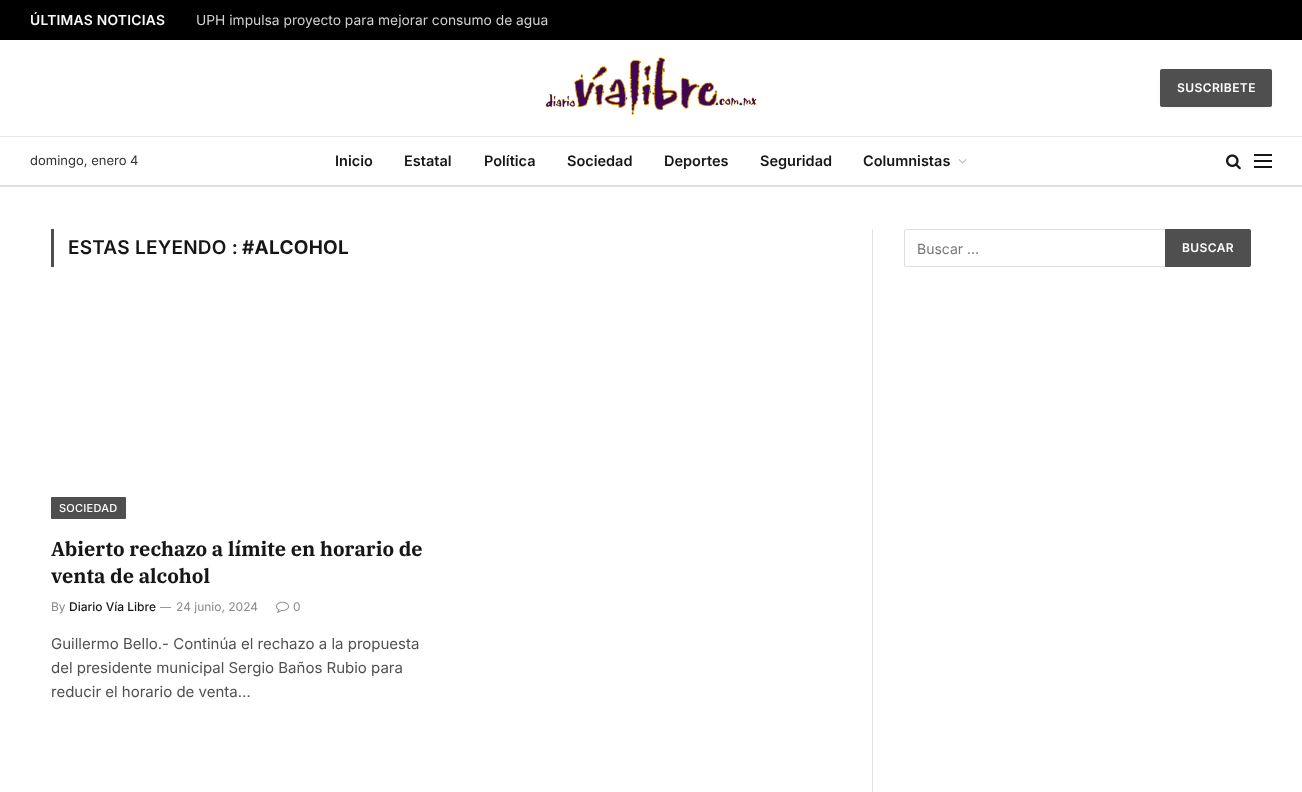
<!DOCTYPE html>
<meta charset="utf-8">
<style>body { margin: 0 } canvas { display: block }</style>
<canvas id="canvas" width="1302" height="792"></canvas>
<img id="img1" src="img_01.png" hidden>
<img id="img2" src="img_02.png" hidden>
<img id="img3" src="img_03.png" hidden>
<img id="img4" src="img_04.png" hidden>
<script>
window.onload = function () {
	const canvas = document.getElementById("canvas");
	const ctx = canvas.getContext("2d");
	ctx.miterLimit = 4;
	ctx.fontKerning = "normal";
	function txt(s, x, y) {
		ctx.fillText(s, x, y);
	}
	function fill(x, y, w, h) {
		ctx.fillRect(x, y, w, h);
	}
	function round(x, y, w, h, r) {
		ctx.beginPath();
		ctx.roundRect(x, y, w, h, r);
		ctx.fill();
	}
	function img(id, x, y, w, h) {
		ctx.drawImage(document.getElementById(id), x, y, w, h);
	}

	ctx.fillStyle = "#FFFFFF";
	fill(0, 0, 1302, 792);
	ctx.fillStyle = "#000000";
	fill(0, 0, 1302, 40);
	img("img1", 545, 57, 212, 58);
	ctx.fillStyle = "rgba(0, 0, 0, 0.16)";
	ctx.filter = "blur(3.5px)";
	ctx.beginPath();
	ctx.rect(1164, 75, 104, 30);
	ctx.fill();
	ctx.filter = "none";
	ctx.fillStyle = "#4F4F4F";
	round(1160, 69, 112, 38, 2);
	ctx.fillStyle = "#E8E8E8";
	fill(0, 136, 1302, 1);
	ctx.fillStyle = "#DEDEDE";
	fill(0, 185, 1302, 2);
	img("img2", 958, 159, 9, 5);
	img("img3", 1226, 154, 15, 16);
	ctx.fillStyle = "#161616";
	fill(1254, 166, 18, 2);
	fill(1254, 154, 18, 2);
	fill(1254, 160, 18, 2);
	ctx.fillStyle = "#4F4F4F";
	fill(51, 229, 3, 38);
	round(51, 497, 75, 22, 1);
	img("img4", 276, 601, 13, 12);
	ctx.fillStyle = "#E2E2E2";
	fill(872, 229, 1, 563);
	ctx.beginPath();
	ctx.roundRect(904.5, 229.5, 262, 37, 1.5);
	ctx.strokeStyle = "#DDDDDD";
	ctx.stroke();
	ctx.fillStyle = "#4F4F4F";
	ctx.beginPath();
	ctx.roundRect(1165, 229, 86, 38, [0, 2, 2, 0]);
	ctx.fill();
	ctx.letterSpacing = "0.25px";
	ctx.font = "600 13.8px Inter";
	ctx.fillStyle = "#F7F7F7";
	txt("ÚLTIMAS NOTICIAS", 30, 25);
	ctx.letterSpacing = "0px";
	ctx.font = "13.8px Inter";
	ctx.fillStyle = "#D1D1D1";
	txt("UPH impulsa proyecto para mejorar consumo de agua", 196, 25);
	ctx.letterSpacing = "0.4px";
	ctx.font = "600 12px Inter";
	ctx.fillStyle = "#FFFFFF";
	txt("SUSCRIBETE", 1177, 92);
	ctx.letterSpacing = "0px";
	ctx.font = "13px Inter";
	ctx.fillStyle = "#333333";
	txt("domingo, enero 4", 30, 165);
	ctx.font = "600 14.5px Inter";
	ctx.fillStyle = "#161616";
	txt("Inicio", 335, 166);
	txt("Estatal", 404, 166);
	txt("Política", 484, 166);
	txt("Sociedad", 567, 166);
	txt("Deportes", 664, 166);
	txt("Seguridad", 760, 166);
	txt("Columnistas", 863, 166);
	ctx.letterSpacing = "0.25px";
	ctx.font = "600 19px Inter";
	txt("ESTAS LEYENDO :", 68, 254);
	ctx.font = "bold 19px Inter";
	txt("#ALCOHOL", 242, 254);
	ctx.font = "500 11px Inter";
	ctx.fillStyle = "#FFFFFF";
	txt("SOCIEDAD", 59, 512);
	ctx.letterSpacing = "0px";
	ctx.font = "bold 20px IBM Plex Serif";
	ctx.fillStyle = "#161616";
	txt("Abierto rechazo a límite en horario de", 51, 556);
	txt("venta de alcohol", 51, 583);
	ctx.font = "12px Inter";
	ctx.fillStyle = "#8A8A8A";
	txt("By", 51, 611);
	ctx.font = "500 12px Inter";
	ctx.fillStyle = "#161616";
	txt("Diario Vía Libre", 69, 611);
	ctx.font = "11px Inter";
	ctx.fillStyle = "#8A8A8A";
	txt("—", 160, 611);
	ctx.font = "12px Inter";
	txt("24 junio, 2024", 176, 611);
	txt("0", 293, 611);
	ctx.font = "15px Inter";
	ctx.fillStyle = "#505050";
	txt("Guillermo Bello.- Continúa el rechazo a la propuesta", 51, 649);
	txt("del presidente municipal Sergio Baños Rubio para", 51, 673);
	txt("reducir el horario de venta…", 51, 697);
	ctx.font = "14px Inter";
	ctx.fillStyle = "#777777";
	txt("Buscar …", 917, 254);
	ctx.letterSpacing = "0.4px";
	ctx.font = "600 12px Inter";
	ctx.fillStyle = "#FFFFFF";
	txt("BUSCAR", 1182, 252);
};
</script>
